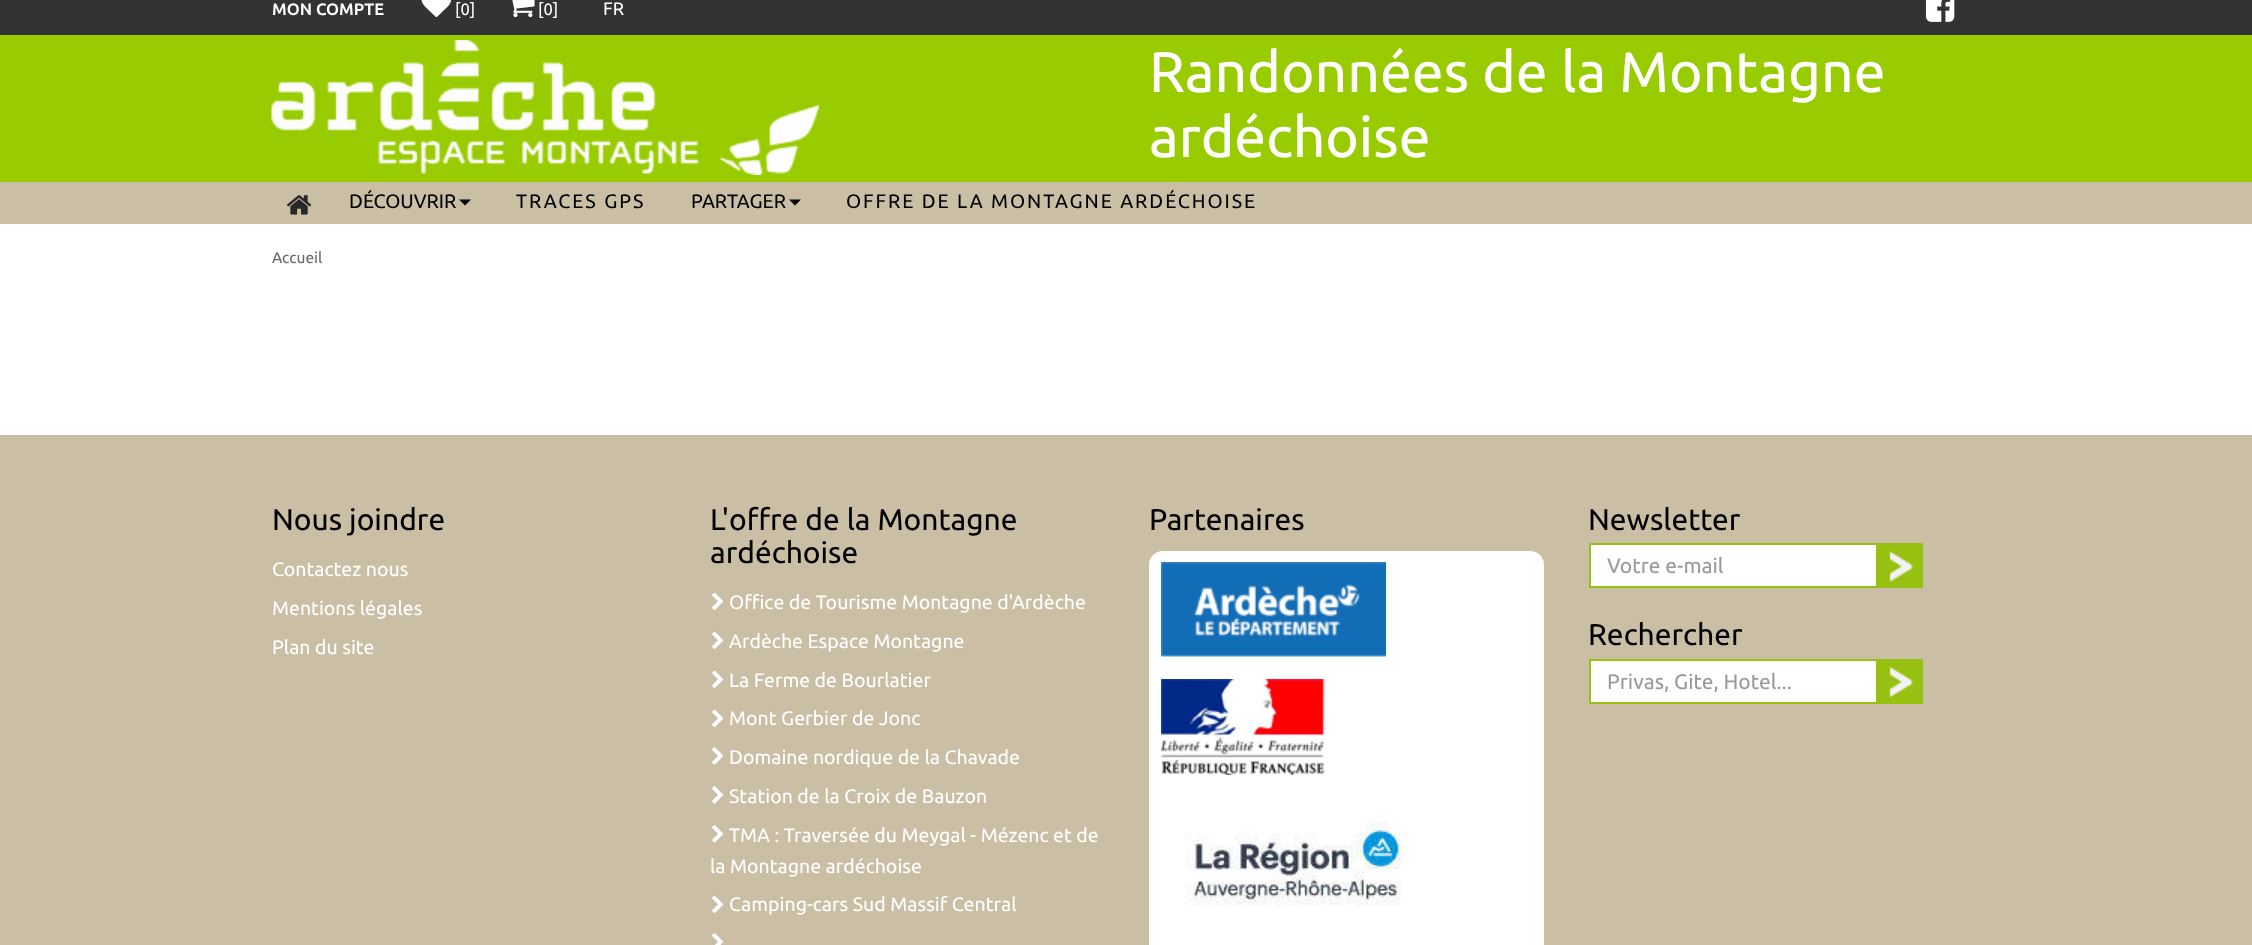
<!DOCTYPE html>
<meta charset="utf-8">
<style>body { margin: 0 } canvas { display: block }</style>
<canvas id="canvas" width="2252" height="945"></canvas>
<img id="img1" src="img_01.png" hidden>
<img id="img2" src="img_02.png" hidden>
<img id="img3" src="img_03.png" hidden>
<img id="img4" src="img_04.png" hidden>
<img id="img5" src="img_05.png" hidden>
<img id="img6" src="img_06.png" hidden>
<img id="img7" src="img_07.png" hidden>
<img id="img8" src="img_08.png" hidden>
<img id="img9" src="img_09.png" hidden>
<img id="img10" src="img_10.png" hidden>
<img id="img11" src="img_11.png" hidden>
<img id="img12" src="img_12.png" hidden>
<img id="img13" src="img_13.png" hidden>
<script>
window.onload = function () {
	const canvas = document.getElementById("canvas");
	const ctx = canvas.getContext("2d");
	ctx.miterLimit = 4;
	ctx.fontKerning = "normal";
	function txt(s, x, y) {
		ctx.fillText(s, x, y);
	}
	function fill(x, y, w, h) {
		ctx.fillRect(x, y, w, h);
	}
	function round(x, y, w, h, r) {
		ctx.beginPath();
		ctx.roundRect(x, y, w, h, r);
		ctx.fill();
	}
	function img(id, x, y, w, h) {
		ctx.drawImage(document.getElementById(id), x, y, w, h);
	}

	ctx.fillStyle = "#FFFFFF";
	fill(0, 0, 2252, 945);
	ctx.fillStyle = "#333333";
	fill(0, 0, 2252, 35);
	img("img1", 421, 0, 31, 18);
	img("img2", 512, 0, 23, 18);
	img("img3", 1926, 0, 29, 22);
	ctx.fillStyle = "#99CC00";
	fill(0, 35, 2252, 147);
	img("img4", 271, 40, 548, 135);
	ctx.fillStyle = "#CABEA4";
	fill(0, 182, 2252, 42);
	img("img5", 287, 195, 25, 20);
	ctx.fillStyle = "#000000";
	ctx.beginPath();
	ctx.moveTo(459, 199.5);
	ctx.lineTo(471, 199.5);
	ctx.lineTo(465, 205.5);
	ctx.closePath();
	ctx.fill();
	ctx.beginPath();
	ctx.moveTo(789, 199.5);
	ctx.lineTo(801, 199.5);
	ctx.lineTo(795, 205.5);
	ctx.closePath();
	ctx.fill();
	ctx.fillStyle = "#CABEA4";
	fill(0, 435, 2252, 510);
	img("img6", 712, 592, 12, 18);
	img("img6", 712, 631, 12, 18);
	img("img6", 712, 670, 12, 18);
	img("img6", 712, 709, 12, 18);
	img("img7", 712, 747, 12, 18);
	img("img7", 712, 786, 12, 18);
	img("img7", 712, 825, 12, 18);
	img("img6", 712, 895, 12, 18);
	img("img8", 712, 933, 12, 12);
	ctx.fillStyle = "#FFFFFF";
	round(1149, 551, 395, 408, 14);
	img("img9", 1161, 562, 225, 95);
	img("img10", 1161, 679, 164, 96);
	img("img11", 1185, 821, 217, 85);
	ctx.beginPath();
	ctx.rect(1590, 544, 287, 43);
	ctx.fill();
	ctx.strokeStyle = "#96C110";
	ctx.lineWidth = 2;
	ctx.stroke();
	ctx.fillStyle = "#96C110";
	fill(1878, 543, 45, 45);
	img("img12", 1888, 551, 25, 31);
	ctx.fillStyle = "#FFFFFF";
	ctx.beginPath();
	ctx.rect(1590, 660, 287, 43);
	ctx.fill();
	ctx.stroke();
	ctx.fillStyle = "#96C110";
	fill(1878, 659, 45, 45);
	img("img13", 1888, 666, 25, 31);
	ctx.font = "bold 16.5px Ubuntu";
	ctx.fillStyle = "#FFFFFF";
	txt("MON COMPTE", 272, 15);
	ctx.font = "16.5px Ubuntu";
	txt("[0]", 455, 15);
	txt("[0]", 538, 15);
	ctx.font = "18px Ubuntu";
	txt("FR", 603, 15);
	ctx.font = "57px Ubuntu";
	txt("Randonnées de la Montagne", 1149, 92);
	txt("ardéchoise", 1149, 157);
	ctx.font = "19.5px Ubuntu";
	ctx.fillStyle = "#000000";
	txt("DÉCOUVRIR", 349, 208);
	ctx.letterSpacing = "1.95px";
	txt("TRACES GPS", 516, 208);
	ctx.letterSpacing = "0px";
	txt("PARTAGER", 691, 208);
	ctx.letterSpacing = "1.95px";
	txt("OFFRE DE LA MONTAGNE ARDÉCHOISE", 846, 208);
	ctx.letterSpacing = "0px";
	ctx.font = "15.5px Ubuntu";
	ctx.fillStyle = "#696969";
	txt("Accueil", 272, 263);
	ctx.font = "30px Ubuntu";
	ctx.fillStyle = "#000000";
	txt("Nous joindre", 272, 530);
	ctx.font = "19.5px Ubuntu";
	ctx.fillStyle = "#FFFFFF";
	txt("Contactez nous", 272, 576);
	txt("Mentions légales", 272, 615);
	txt("Plan du site", 272, 654);
	ctx.font = "30px Ubuntu";
	ctx.fillStyle = "#000000";
	txt("L'offre de la Montagne", 710, 530);
	txt("ardéchoise", 710, 563);
	ctx.font = "19.5px Ubuntu";
	ctx.fillStyle = "#FFFFFF";
	txt("Office de Tourisme Montagne d'Ardèche", 729, 609);
	txt("Ardèche Espace Montagne", 729, 648);
	txt("La Ferme de Bourlatier", 729, 687);
	txt("Mont Gerbier de Jonc", 729, 725);
	txt("Domaine nordique de la Chavade", 729, 764);
	txt("Station de la Croix de Bauzon", 729, 803);
	txt("TMA : Traversée du Meygal - Mézenc et de", 729, 842);
	txt("la Montagne ardéchoise", 710, 873);
	txt("Camping-cars Sud Massif Central", 729, 911);
	ctx.font = "30px Ubuntu";
	ctx.fillStyle = "#000000";
	txt("Partenaires", 1149, 530);
	txt("Newsletter", 1588, 530);
	ctx.font = "21px Ubuntu";
	ctx.fillStyle = "#999999";
	txt("Votre e-mail", 1607, 573);
	ctx.font = "30px Ubuntu";
	ctx.fillStyle = "#000000";
	txt("Rechercher", 1588, 645);
	ctx.font = "21px Ubuntu";
	ctx.fillStyle = "#999999";
	txt("Privas, Gite, Hotel...", 1607, 689);
};
</script>
